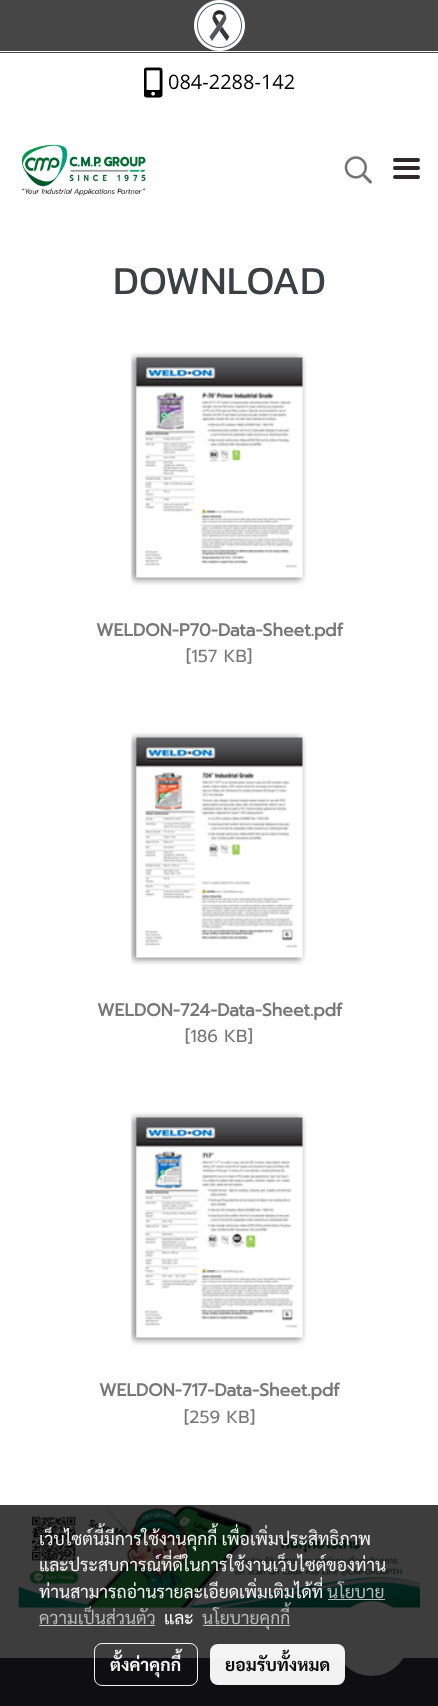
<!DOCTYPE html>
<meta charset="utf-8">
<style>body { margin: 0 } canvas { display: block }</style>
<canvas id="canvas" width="438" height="1706"></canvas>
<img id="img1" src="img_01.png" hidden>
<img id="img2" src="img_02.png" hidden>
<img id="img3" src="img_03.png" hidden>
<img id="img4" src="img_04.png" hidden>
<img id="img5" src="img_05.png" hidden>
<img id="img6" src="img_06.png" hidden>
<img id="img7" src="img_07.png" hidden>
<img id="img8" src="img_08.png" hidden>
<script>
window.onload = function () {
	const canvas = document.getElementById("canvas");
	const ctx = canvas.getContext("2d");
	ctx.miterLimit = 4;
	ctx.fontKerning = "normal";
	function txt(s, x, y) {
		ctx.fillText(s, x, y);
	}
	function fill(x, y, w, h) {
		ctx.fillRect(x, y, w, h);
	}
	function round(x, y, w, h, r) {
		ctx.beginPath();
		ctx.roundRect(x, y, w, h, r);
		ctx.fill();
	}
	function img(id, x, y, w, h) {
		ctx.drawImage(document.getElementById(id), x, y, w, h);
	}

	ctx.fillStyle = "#FFFFFF";
	fill(0, 0, 438, 1706);
	ctx.fillStyle = "#3D3D3D";
	fill(0, 1505, 438, 153);
	ctx.fillStyle = "#464646";
	fill(0, 0, 438, 53);
	ctx.fillStyle = "#FFFFFF";
	fill(0, 51, 438, 1);
	img("img1", 194, 0, 51, 51);
	img("img2", 144, 67, 19, 31);
	img("img3", 21, 144, 125, 52);
	img("img4", 344, 156, 29, 28);
	ctx.fillStyle = "#2D2A29";
	round(393, 166, 27, 4, 2);
	round(393, 158, 27, 4, 2);
	round(393, 175, 27, 4, 2);
	img("img5", 131, 352, 176, 233);
	img("img6", 131, 732, 176, 233);
	img("img7", 131, 1112, 176, 233);
	img("img8", 18, 1505, 402, 103);
	ctx.fillStyle = "#0F0F11";
	fill(0, 1658, 438, 48);
	ctx.fillStyle = "#B8BAB9";
	fill(328, 1599, 57, 1);
	ctx.fillStyle = "#C5C5C5";
	fill(39, 1625, 116, 1);
	fill(203, 1625, 87, 1);
	ctx.beginPath();
	ctx.roundRect(94.5, 1643.5, 103, 42, 7.5);
	ctx.strokeStyle = "rgba(255, 255, 255, 0.95)";
	ctx.stroke();
	ctx.fillStyle = "#3D3D3D";
	ctx.beginPath();
	ctx.arc(371.5, 1638.5, 37.5, 0, Math.PI * 2);
	ctx.fill();
	ctx.fillStyle = "rgba(255, 255, 255, 0.95)";
	round(210, 1644, 135, 41, 8);
	ctx.font = "20px Open Sans";
	ctx.fillStyle = "#000000";
	txt("084-2288-142", 168, 89);
	ctx.font = "40px Kanit";
	ctx.fillStyle = "#3B4044";
	txt("DOWNLOAD", 113, 294);
	ctx.font = "bold 17.5px Prompt";
	ctx.fillStyle = "#787878";
	txt("WELDON-P70-Data-Sheet.pdf", 96, 636);
	ctx.font = "17.5px Prompt";
	txt("[157 KB]", 186, 662);
	ctx.font = "bold 17.5px Prompt";
	txt("WELDON-724-Data-Sheet.pdf", 97, 1016);
	ctx.font = "17.5px Prompt";
	txt("[186 KB]", 185, 1042);
	ctx.font = "bold 17.5px Prompt";
	txt("WELDON-717-Data-Sheet.pdf", 99, 1396);
	ctx.font = "17.5px Prompt";
	txt("[259 KB]", 184, 1423);
	ctx.font = "17.5px Sarabun";
	ctx.fillStyle = "#F4F5F4";
	txt("เว็บไซต์นี้มีการใช้งานคุกกี้ เพื่อเพิ่มประสิทธิภาพ", 39, 1545);
	txt("และประสบการณ์ที่ดีในการใช้งานเว็บไซต์ของท่าน", 39, 1571);
	txt("ท่านสามารถอ่านรายละเอียดเพิ่มเติมได้ที่", 39, 1598);
	ctx.fillStyle = "#B8BABA";
	txt("นโยบาย", 327, 1598);
	txt("ความเป็นส่วนตัว", 39, 1624);
	ctx.fillStyle = "#FFFFFF";
	txt("และ", 164, 1624);
	ctx.fillStyle = "#B8BABA";
	txt("นโยบายคุกกี้", 202, 1624);
	ctx.font = "bold 17.5px Sarabun";
	ctx.fillStyle = "#F4F5F4";
	txt("ตั้งค่าคุกกี้", 110, 1671);
	ctx.fillStyle = "#0C0C0C";
	txt("ยอมรับทั้งหมด", 225, 1671);
};
</script>
